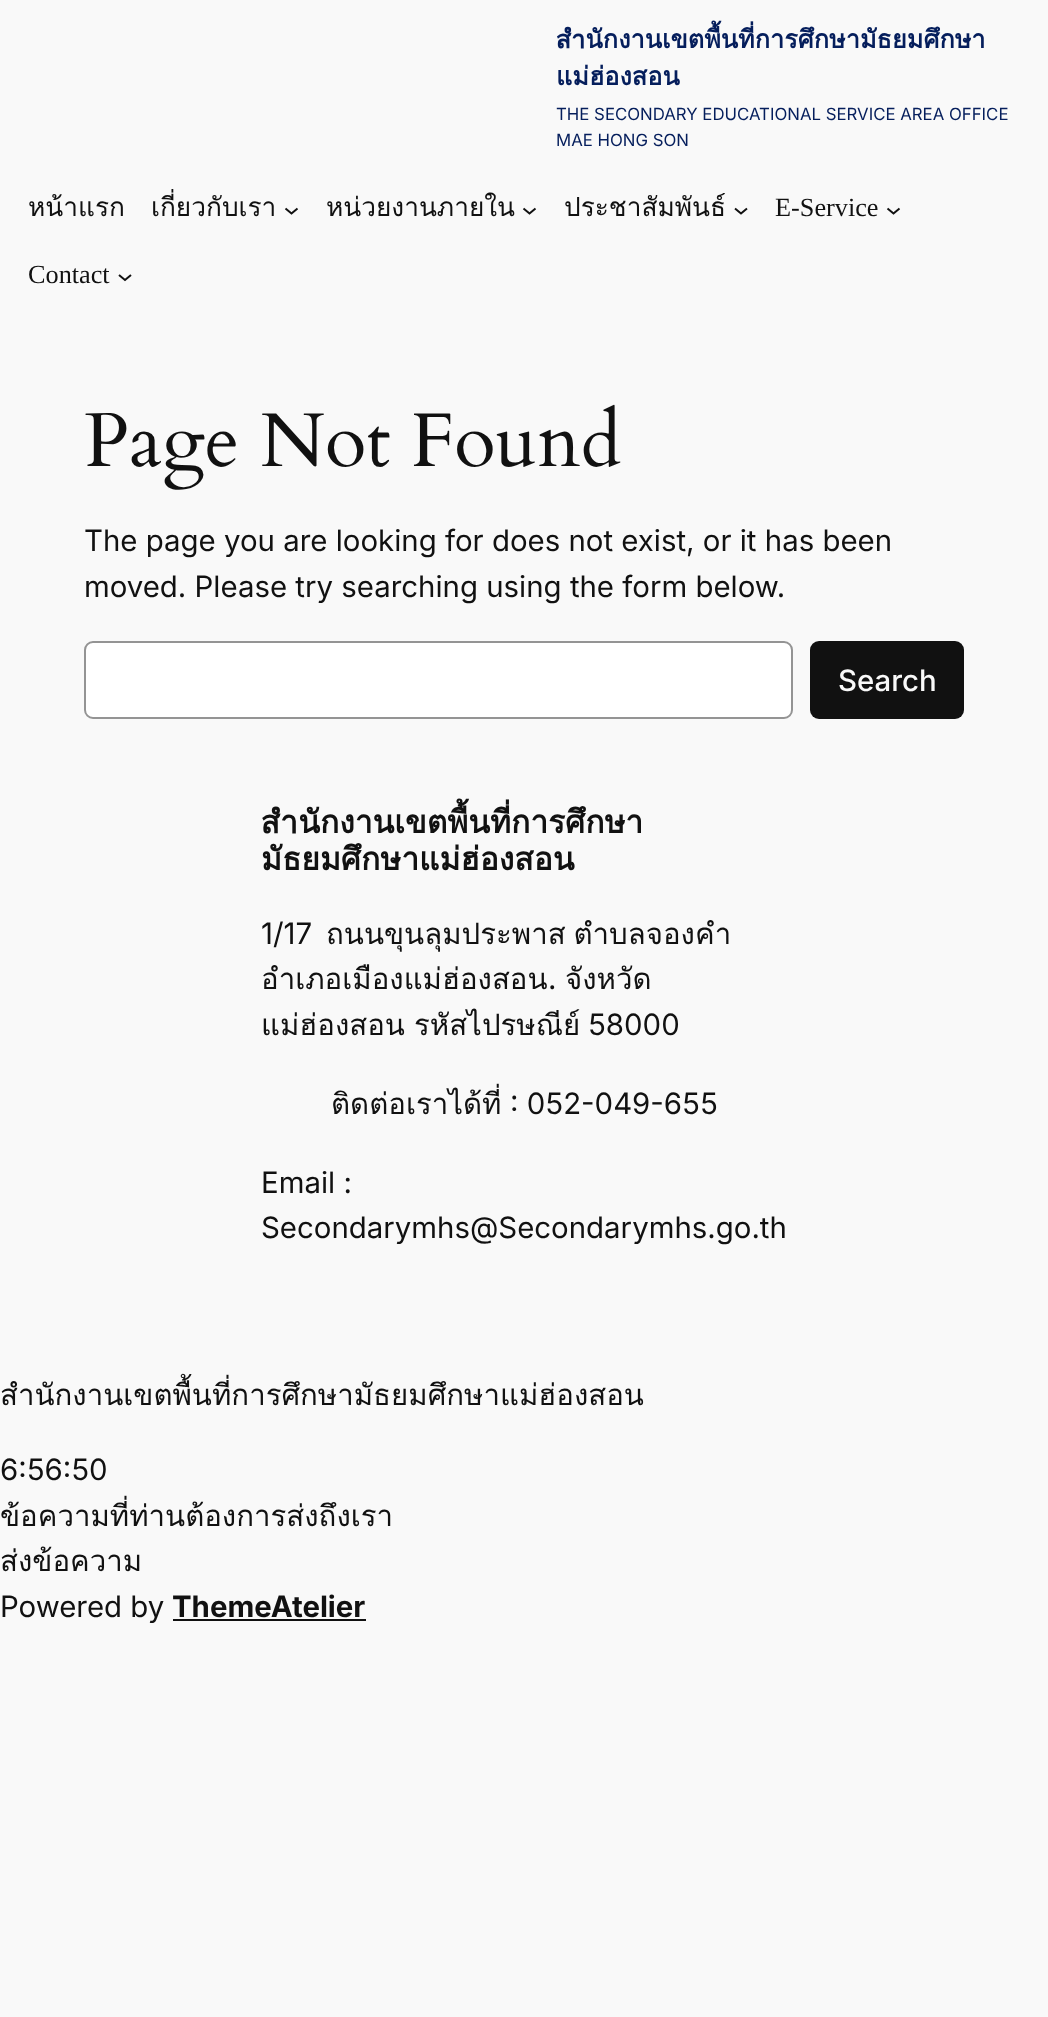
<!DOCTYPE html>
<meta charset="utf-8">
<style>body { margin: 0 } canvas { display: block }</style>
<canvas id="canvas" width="1048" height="2017"></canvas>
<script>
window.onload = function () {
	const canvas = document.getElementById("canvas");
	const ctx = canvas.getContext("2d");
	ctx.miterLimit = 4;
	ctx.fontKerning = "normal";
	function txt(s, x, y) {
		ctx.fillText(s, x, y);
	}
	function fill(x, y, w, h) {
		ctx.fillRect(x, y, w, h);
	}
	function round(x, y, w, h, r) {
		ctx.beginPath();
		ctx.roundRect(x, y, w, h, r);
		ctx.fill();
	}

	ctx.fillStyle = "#F9F9F9";
	fill(0, 0, 1048, 2017);
	ctx.beginPath();
	ctx.moveTo(285.5, 208.5);
	ctx.lineTo(291.5, 213.5);
	ctx.lineTo(297.5, 208.5);
	ctx.strokeStyle = "#111111";
	ctx.lineWidth = 2;
	ctx.stroke();
	ctx.beginPath();
	ctx.moveTo(523.5, 208.5);
	ctx.lineTo(529.5, 213.5);
	ctx.lineTo(535.5, 208.5);
	ctx.stroke();
	ctx.beginPath();
	ctx.moveTo(735, 208.5);
	ctx.lineTo(741, 213.5);
	ctx.lineTo(747, 208.5);
	ctx.stroke();
	ctx.beginPath();
	ctx.moveTo(887.5, 208.5);
	ctx.lineTo(893.5, 213.5);
	ctx.lineTo(899.5, 208.5);
	ctx.stroke();
	ctx.beginPath();
	ctx.moveTo(119, 275);
	ctx.lineTo(125, 280);
	ctx.lineTo(131, 275);
	ctx.stroke();
	ctx.fillStyle = "#FFFFFF";
	ctx.beginPath();
	ctx.roundRect(85, 642, 707, 76, 8);
	ctx.fill();
	ctx.strokeStyle = "#949494";
	ctx.stroke();
	ctx.fillStyle = "#111111";
	round(810, 641, 154, 78, 9);
	fill(173, 1619, 193, 2);
	ctx.font = "bold 25.25px Loma";
	ctx.fillStyle = "#051E5C";
	txt("สำนักงานเขตพื้นที่การศึกษามัธยมศึกษา", 556, 48);
	txt("แม่ฮ่องสอน", 556, 85);
	ctx.font = "16.8px Inter";
	txt("THE SECONDARY EDUCATIONAL SERVICE AREA OFFICE", 556, 120);
	txt("MAE HONG SON", 556, 146);
	ctx.font = "26.25px Loma";
	ctx.fillStyle = "#111111";
	txt("หน้าแรก", 28, 216);
	txt("เกี่ยวกับเรา", 151, 216);
	txt("หน่วยงานภายใน", 326, 216);
	txt("ประชาสัมพันธ์", 564, 216);
	ctx.font = "26.25px Liberation Serif";
	txt("E-Service", 775, 216);
	txt("Contact", 28, 283);
	ctx.font = "76.25px Cardo";
	txt("Page Not Found", 84, 466);
	ctx.font = "29.4px Inter";
	txt("The page you are looking for does not exist, or it has been", 84, 551);
	txt("moved. Please try searching using the form below.", 84, 597);
	ctx.font = "500 29.4px Inter";
	ctx.fillStyle = "#F9F9F9";
	txt("Search", 838, 691);
	ctx.font = "bold 31.75px Loma";
	ctx.fillStyle = "#111111";
	txt("สำนักงานเขตพื้นที่การศึกษา", 261, 833);
	txt("มัธยมศึกษาแม่ฮ่องสอน", 261, 870);
	ctx.font = "29.4px Inter";
	txt("1/17", 261, 944);
	ctx.wordSpacing = "-2px";
	ctx.font = "29.4px Loma";
	txt("ถนนขุนลุมประพาส ตำบลจองคำ", 326, 944);
	ctx.wordSpacing = "0px";
	txt("อำเภอเมืองแม่ฮ่องสอน", 261, 989);
	ctx.font = "29.4px Inter";
	txt(".", 548, 989);
	ctx.font = "29.4px Loma";
	txt("จังหวัด", 565, 989);
	txt("แม่ฮ่องสอน", 261, 1035);
	txt("รหัสไปรษณีย์", 414, 1035);
	ctx.font = "29.4px Inter";
	txt("58000", 588, 1035);
	ctx.font = "29.4px Loma";
	txt("ติดต่อเราได้ที่", 331, 1114);
	ctx.font = "29.4px Inter";
	txt(": 052-049-655", 510, 1114);
	txt("Email :", 261, 1193);
	txt("Secondarymhs@Secondarymhs.go.th", 261, 1238);
	ctx.font = "29.4px Loma";
	txt("สำนักงานเขตพื้นที่การศึกษามัธยมศึกษาแม่ฮ่องสอน", 0, 1405);
	ctx.font = "29.4px Inter";
	txt("6:56:50", 0, 1480);
	ctx.font = "29.4px Loma";
	txt("ข้อความที่ท่านต้องการส่งถึงเรา", 0, 1526);
	txt("ส่งข้อความ", 0, 1571);
	ctx.font = "29.4px Inter";
	txt("Powered by", 0, 1617);
	ctx.font = "bold 29.4px Inter";
	txt("ThemeAtelier", 172, 1617);
};
</script>
